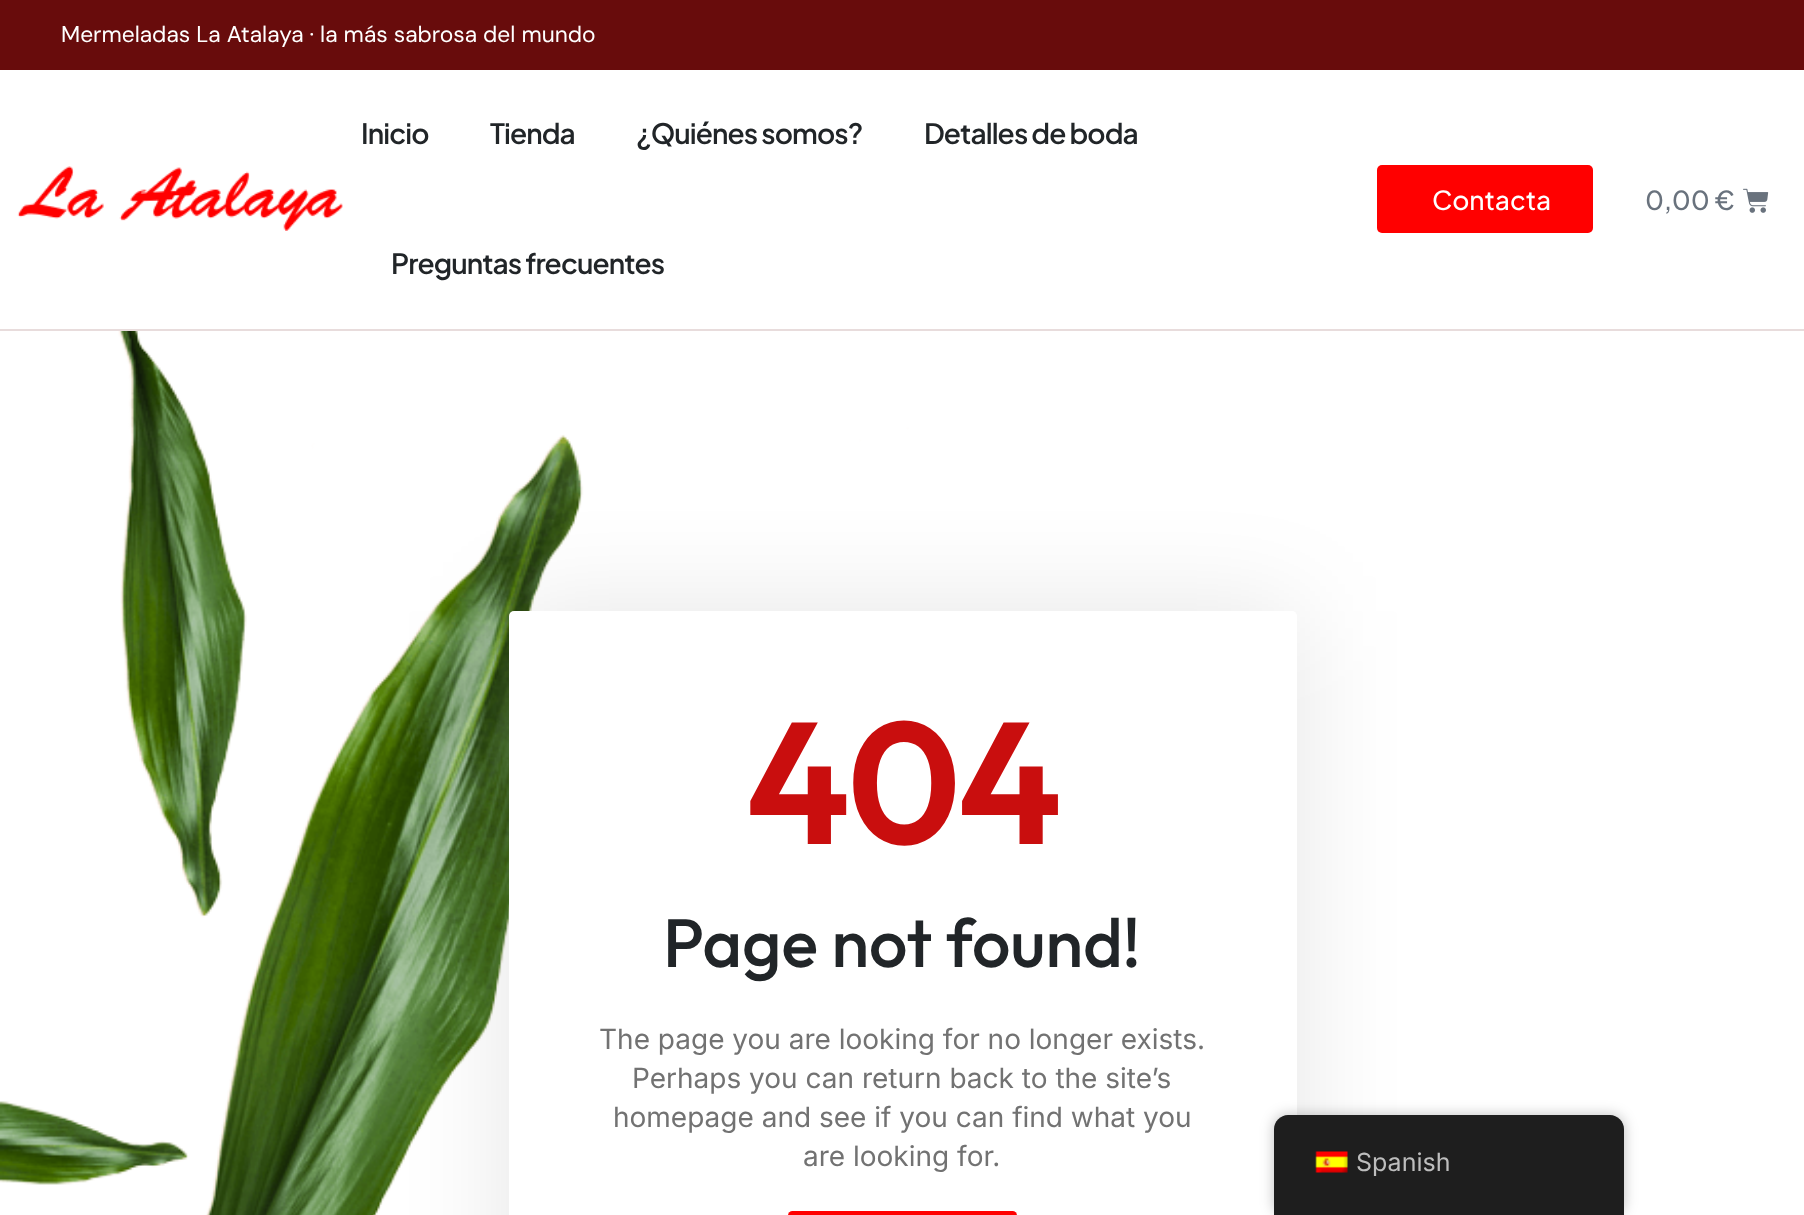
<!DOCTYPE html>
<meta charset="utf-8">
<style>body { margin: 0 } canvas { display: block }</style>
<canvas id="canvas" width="1804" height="1215"></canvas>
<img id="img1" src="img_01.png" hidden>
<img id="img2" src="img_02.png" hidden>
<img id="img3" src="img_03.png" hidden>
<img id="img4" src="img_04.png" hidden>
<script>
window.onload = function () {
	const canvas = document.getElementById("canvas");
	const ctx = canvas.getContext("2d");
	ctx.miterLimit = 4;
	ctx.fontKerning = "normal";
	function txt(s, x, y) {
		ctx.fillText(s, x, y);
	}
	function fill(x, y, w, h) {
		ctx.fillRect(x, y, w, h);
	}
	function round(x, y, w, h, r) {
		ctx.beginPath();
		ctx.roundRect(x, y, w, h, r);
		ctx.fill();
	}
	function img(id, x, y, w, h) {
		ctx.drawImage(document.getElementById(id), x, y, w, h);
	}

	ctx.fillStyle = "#FFFFFF";
	fill(0, 0, 1804, 1215);
	ctx.fillStyle = "#680C0C";
	fill(0, 0, 1804, 70);
	ctx.fillStyle = "#E8DCDC";
	fill(0, 329, 1804, 2);
	img("img1", 17, 166, 326, 65);
	ctx.fillStyle = "#FF0000";
	round(1377, 165, 216, 68, 5);
	img("img2", 1743, 188, 26, 25);
	img("img3", 0, 331, 909, 884);
	ctx.fillStyle = "rgba(0, 0, 0, 0.1)";
	ctx.filter = "blur(52.5px)";
	ctx.beginPath();
	ctx.roundRect(509, 611, 788, 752, 5);
	ctx.fill();
	ctx.filter = "none";
	ctx.fillStyle = "#FFFFFF";
	round(509, 611, 788, 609, 5);
	ctx.fillStyle = "#FF0000";
	round(788, 1211, 229, 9, 5);
	ctx.fillStyle = "rgba(0, 0, 0, 0.25)";
	ctx.filter = "blur(7px)";
	ctx.beginPath();
	ctx.roundRect(1274, 1115, 350, 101, 14);
	ctx.fill();
	ctx.filter = "none";
	ctx.fillStyle = "#1E1E1E";
	ctx.beginPath();
	ctx.moveTo(1288, 1115);
	ctx.lineTo(1610, 1115);
	ctx.bezierCurveTo(1617.5, 1115, 1624, 1121.5, 1624, 1129);
	ctx.lineTo(1624, 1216);
	ctx.lineTo(1274, 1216);
	ctx.lineTo(1274, 1129);
	ctx.bezierCurveTo(1274, 1121.5, 1280.5, 1115, 1288, 1115);
	ctx.closePath();
	ctx.fill();
	img("img4", 1315, 1151, 33, 22);
	ctx.font = "22.75px DM Sans";
	ctx.fillStyle = "#FFFFFF";
	txt("Mermeladas La Atalaya · la más sabrosa del mundo", 61, 42);
	ctx.letterSpacing = "-0.9px";
	ctx.font = "600 28px Plus Jakarta Sans";
	ctx.fillStyle = "#212528";
	txt("Inicio", 361, 144);
	txt("Tienda", 490, 144);
	txt("¿Quiénes somos?", 636, 144);
	txt("Detalles de boda", 924, 144);
	txt("Preguntas frecuentes", 391, 274);
	ctx.letterSpacing = "0px";
	ctx.font = "500 26.25px Plus Jakarta Sans";
	ctx.fillStyle = "#FFFFFF";
	txt("Contacta", 1432, 210);
	ctx.fillStyle = "#69727D";
	txt("0,00 €", 1645, 210);
	ctx.letterSpacing = "-3.5px";
	ctx.font = "600 173px Outfit";
	ctx.fillStyle = "#C90E0E";
	txt("404", 746, 844);
	ctx.letterSpacing = "0px";
	ctx.font = "500 68.25px Outfit";
	ctx.fillStyle = "#212528";
	txt("Page not found!", 663, 967);
	ctx.font = "28px Inter";
	ctx.fillStyle = "#727272";
	txt("The page you are looking for no longer exists.", 599, 1049);
	txt("Perhaps you can return back to the site’s", 632, 1088);
	txt("homepage and see if you can find what you", 613, 1127);
	txt("are looking for.", 803, 1166);
	ctx.font = "25px Inter";
	ctx.fillStyle = "#BDBDBD";
	txt("Spanish", 1356, 1171);
};
</script>
